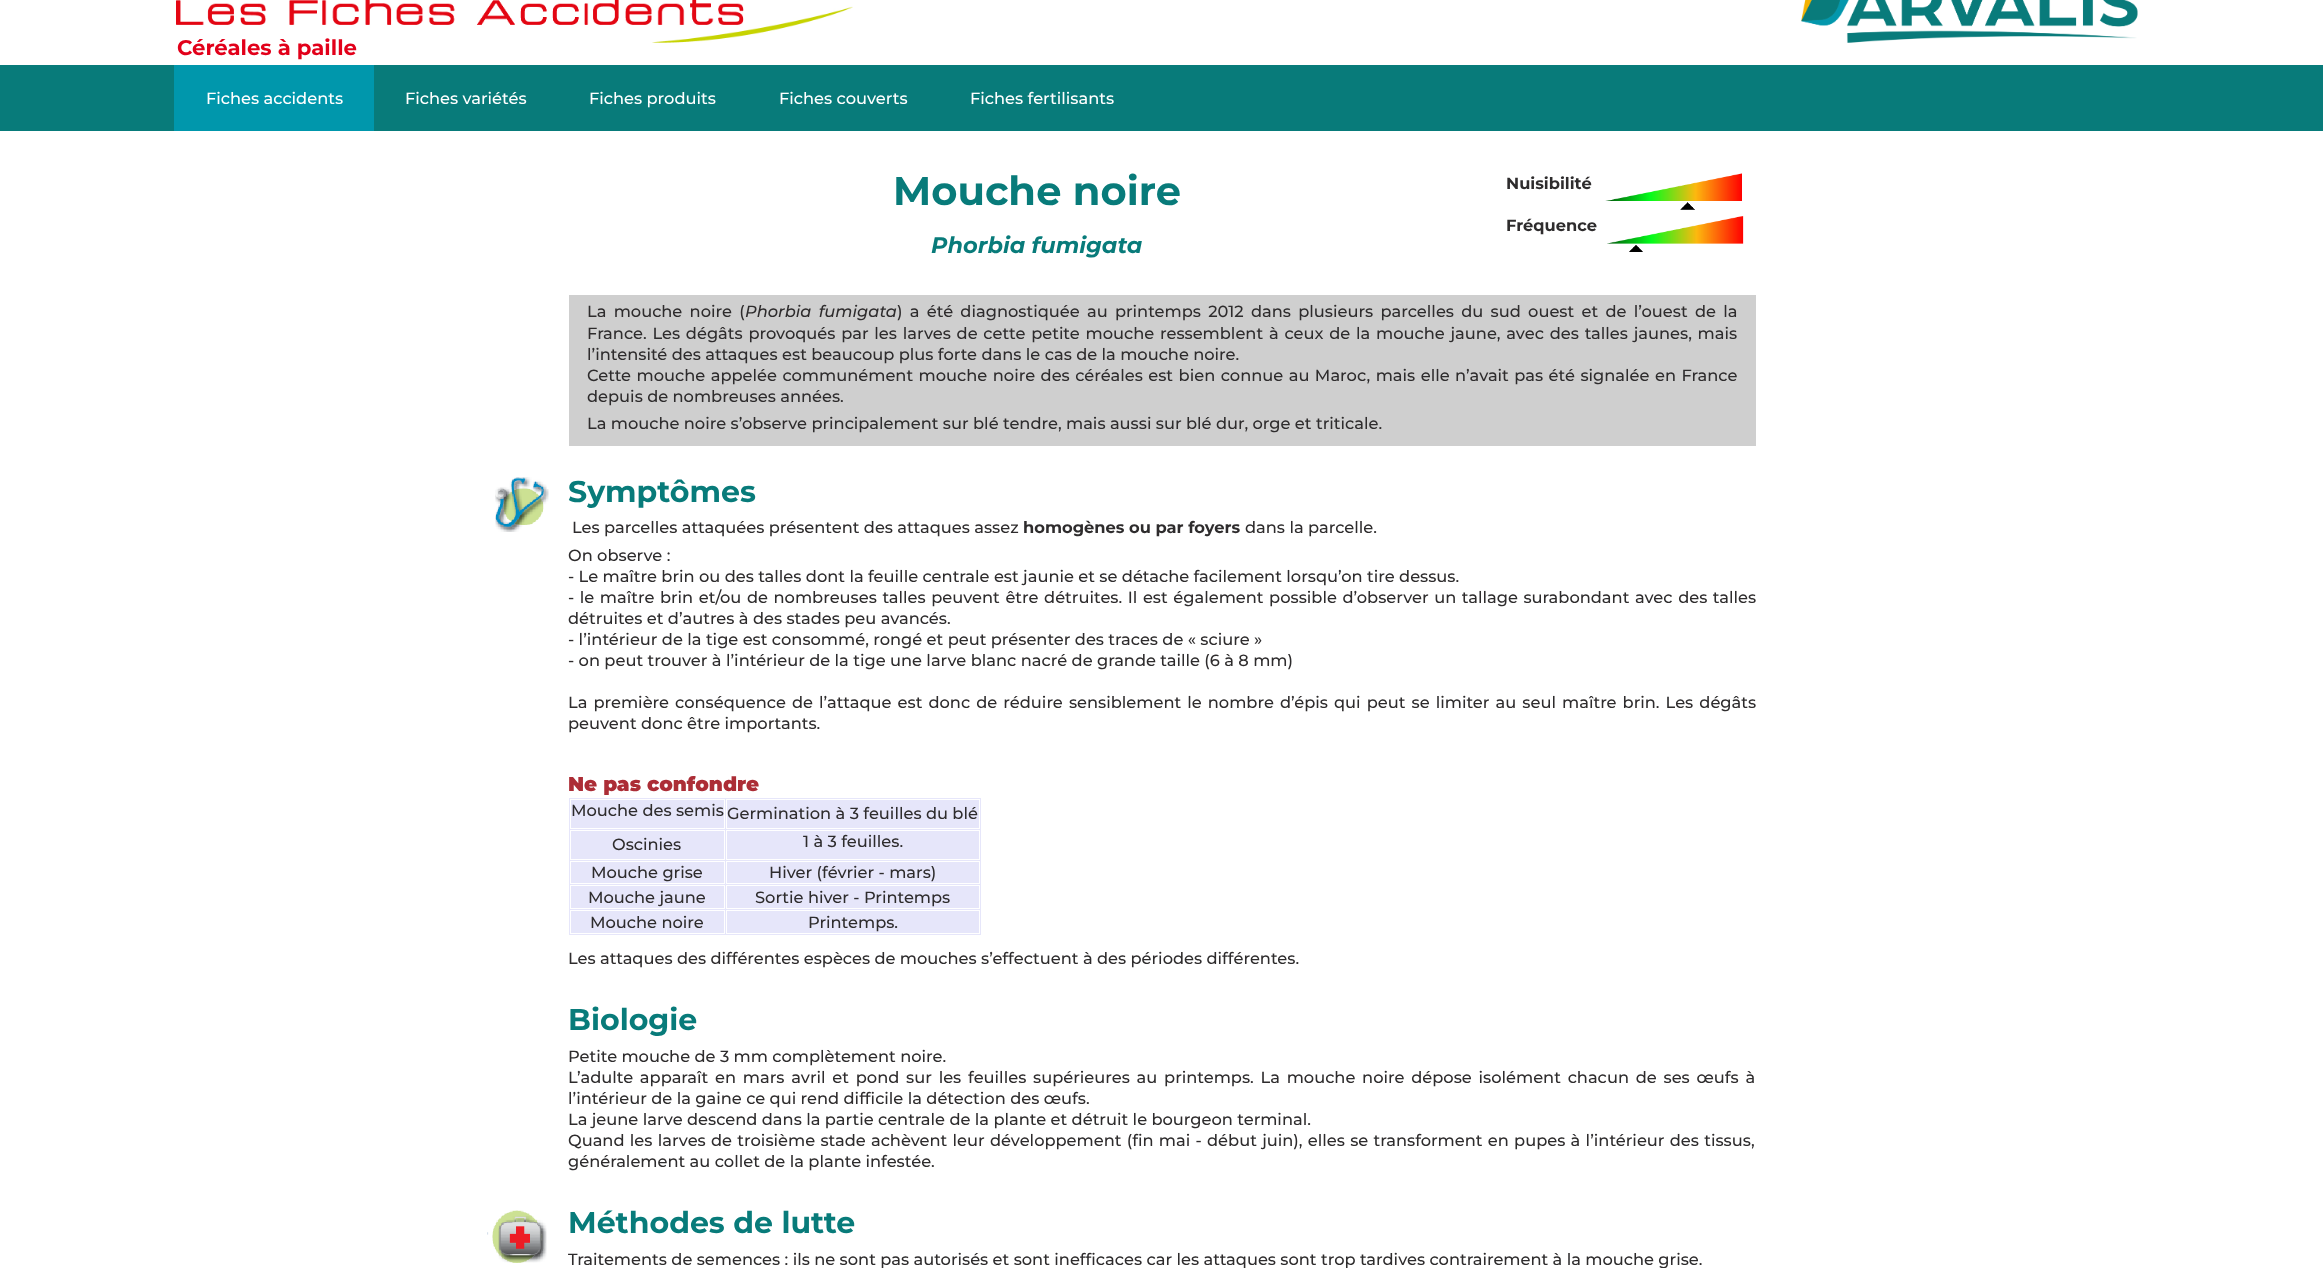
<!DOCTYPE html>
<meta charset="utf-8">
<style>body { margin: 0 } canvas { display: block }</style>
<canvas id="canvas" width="2323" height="1268"></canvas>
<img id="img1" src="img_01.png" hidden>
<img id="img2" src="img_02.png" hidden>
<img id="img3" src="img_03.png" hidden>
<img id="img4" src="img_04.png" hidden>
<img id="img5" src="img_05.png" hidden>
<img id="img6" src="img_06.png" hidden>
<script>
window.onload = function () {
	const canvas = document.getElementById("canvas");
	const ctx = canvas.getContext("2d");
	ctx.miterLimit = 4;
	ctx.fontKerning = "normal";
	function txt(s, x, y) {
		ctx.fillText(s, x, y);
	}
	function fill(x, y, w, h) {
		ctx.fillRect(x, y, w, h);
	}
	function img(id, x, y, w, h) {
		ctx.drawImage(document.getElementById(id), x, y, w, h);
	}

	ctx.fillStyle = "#FFFFFF";
	fill(0, 0, 2323, 1268);
	img("img1", 176, 0, 677, 43);
	img("img2", 1801, 0, 337, 43);
	ctx.fillStyle = "#087B7A";
	fill(0, 65, 2323, 66);
	ctx.fillStyle = "#0097AC";
	fill(174, 65, 200, 66);
	img("img3", 1605, 173, 137, 37);
	img("img4", 1607, 216, 137, 36);
	ctx.fillStyle = "#CFCFCF";
	fill(569, 295, 1187, 151);
	img("img5", 495, 477, 54, 55);
	ctx.fillStyle = "#E6E6FA";
	fill(569, 798, 412, 137);
	ctx.strokeStyle = "#FFFFFF";
	ctx.strokeRect(570.5, 799.5, 154, 29);
	ctx.strokeRect(726.5, 799.5, 253, 29);
	ctx.strokeRect(570.5, 830.5, 154, 29);
	ctx.strokeRect(726.5, 830.5, 253, 29);
	ctx.strokeRect(570.5, 861.5, 154, 22);
	ctx.strokeRect(726.5, 861.5, 253, 22);
	ctx.strokeRect(570.5, 885.5, 154, 23);
	ctx.strokeRect(726.5, 885.5, 253, 23);
	ctx.strokeRect(570.5, 910.5, 154, 23);
	ctx.strokeRect(726.5, 910.5, 253, 23);
	img("img6", 487, 1210, 60, 53);
	ctx.font = "bold 21.25px Montserrat";
	ctx.fillStyle = "#E2001A";
	txt("Céréales à paille", 177, 55);
	ctx.font = "500 16.25px Montserrat";
	ctx.fillStyle = "#FFFFFF";
	txt("Fiches accidents", 206, 104);
	txt("Fiches variétés", 405, 104);
	txt("Fiches produits", 589, 104);
	txt("Fiches couverts", 779, 104);
	txt("Fiches fertilisants", 970, 104);
	ctx.font = "bold 40px Montserrat";
	ctx.fillStyle = "#087B7A";
	txt("Mouche noire", 893, 205);
	ctx.font = "italic bold 22.5px Montserrat";
	txt("Phorbia fumigata", 931, 253);
	ctx.font = "bold 16.25px Montserrat";
	ctx.fillStyle = "#2E2C2D";
	txt("Nuisibilité", 1506, 189);
	txt("Fréquence", 1506, 231);
	ctx.wordSpacing = "2.9px";
	ctx.font = "500 16.25px Montserrat";
	txt("La mouche noire (", 587, 317);
	ctx.font = "italic 500 16.25px Montserrat";
	txt("Phorbia fumigata", 745, 317);
	ctx.font = "500 16.25px Montserrat";
	txt(") a été diagnostiquée au printemps 2012 dans plusieurs parcelles du sud ouest et de l’ouest de la", 897, 317);
	ctx.wordSpacing = "1.4px";
	txt("France. Les dégâts provoqués par les larves de cette petite mouche ressemblent à ceux de la mouche jaune, avec des talles jaunes, mais", 587, 339);
	ctx.wordSpacing = "0px";
	txt("l’intensité des attaques est beaucoup plus forte dans le cas de la mouche noire.", 587, 360);
	ctx.wordSpacing = "1.1px";
	txt("Cette mouche appelée communément mouche noire des céréales est bien connue au Maroc, mais elle n’avait pas été signalée en France", 587, 381);
	ctx.wordSpacing = "0px";
	txt("depuis de nombreuses années.", 587, 402);
	txt("La mouche noire s’observe principalement sur blé tendre, mais aussi sur blé dur, orge et triticale.", 587, 429);
	ctx.font = "bold 30px Montserrat";
	ctx.fillStyle = "#087B7A";
	txt("Symptômes", 568, 502);
	ctx.font = "500 16.25px Montserrat";
	ctx.fillStyle = "#2E2C2D";
	txt("Les parcelles attaquées présentent des attaques assez", 572, 533);
	ctx.font = "bold 16.25px Montserrat";
	txt("homogènes ou par foyers", 1023, 533);
	ctx.font = "500 16.25px Montserrat";
	txt("dans la parcelle.", 1245, 533);
	txt("On observe :", 568, 561);
	txt("- Le maître brin ou des talles dont la feuille centrale est jaunie et se détache facilement lorsqu’on tire dessus.", 568, 582);
	ctx.wordSpacing = "1.2px";
	txt("- le maître brin et/ou de nombreuses talles peuvent être détruites. Il est également possible d’observer un tallage surabondant avec des talles", 568, 603);
	ctx.wordSpacing = "0px";
	txt("détruites et d’autres à des stades peu avancés.", 568, 624);
	txt("- l’intérieur de la tige est consommé, rongé et peut présenter des traces de « sciure »", 568, 645);
	txt("- on peut trouver à l’intérieur de la tige une larve blanc nacré de grande taille (6 à 8 mm)", 568, 666);
	ctx.wordSpacing = "1.7px";
	txt("La première conséquence de l’attaque est donc de réduire sensiblement le nombre d’épis qui peut se limiter au seul maître brin. Les dégâts", 568, 708);
	ctx.wordSpacing = "0px";
	txt("peuvent donc être importants.", 568, 729);
	ctx.font = "900 20px Montserrat";
	ctx.fillStyle = "#AC2D36";
	txt("Ne pas confondre", 568, 791);
	ctx.font = "500 16.25px Montserrat";
	ctx.fillStyle = "#2E2C2D";
	txt("Mouche des semis", 571, 816);
	txt("Germination à 3 feuilles du blé", 727, 819);
	txt("Oscinies", 612, 850);
	txt("1 à 3 feuilles.", 803, 847);
	txt("Mouche grise", 591, 878);
	txt("Hiver (février - mars)", 769, 878);
	txt("Mouche jaune", 588, 903);
	txt("Sortie hiver - Printemps", 755, 903);
	txt("Mouche noire", 590, 928);
	txt("Printemps.", 808, 928);
	txt("Les attaques des différentes espèces de mouches s’effectuent à des périodes différentes.", 568, 964);
	ctx.font = "bold 30px Montserrat";
	ctx.fillStyle = "#087B7A";
	txt("Biologie", 568, 1030);
	ctx.font = "500 16.25px Montserrat";
	ctx.fillStyle = "#2E2C2D";
	txt("Petite mouche de 3 mm complètement noire.", 568, 1062);
	ctx.wordSpacing = "2.4px";
	txt("L’adulte apparaît en mars avril et pond sur les feuilles supérieures au printemps. La mouche noire dépose isolément chacun de ses œufs à", 568, 1083);
	ctx.wordSpacing = "0px";
	txt("l’intérieur de la gaine ce qui rend difficile la détection des œufs.", 568, 1104);
	txt("La jeune larve descend dans la partie centrale de la plante et détruit le bourgeon terminal.", 568, 1125);
	ctx.wordSpacing = "0.9px";
	txt("Quand les larves de troisième stade achèvent leur développement (fin mai - début juin), elles se transforment en pupes à l’intérieur des tissus,", 568, 1146);
	ctx.wordSpacing = "0px";
	txt("généralement au collet de la plante infestée.", 568, 1167);
	ctx.font = "bold 30px Montserrat";
	ctx.fillStyle = "#087B7A";
	txt("Méthodes de lutte", 568, 1233);
	ctx.font = "500 16.25px Montserrat";
	ctx.fillStyle = "#2E2C2D";
	txt("Traitements de semences : ils ne sont pas autorisés et sont inefficaces car les attaques sont trop tardives contrairement à la mouche grise.", 568, 1265);
};
</script>
